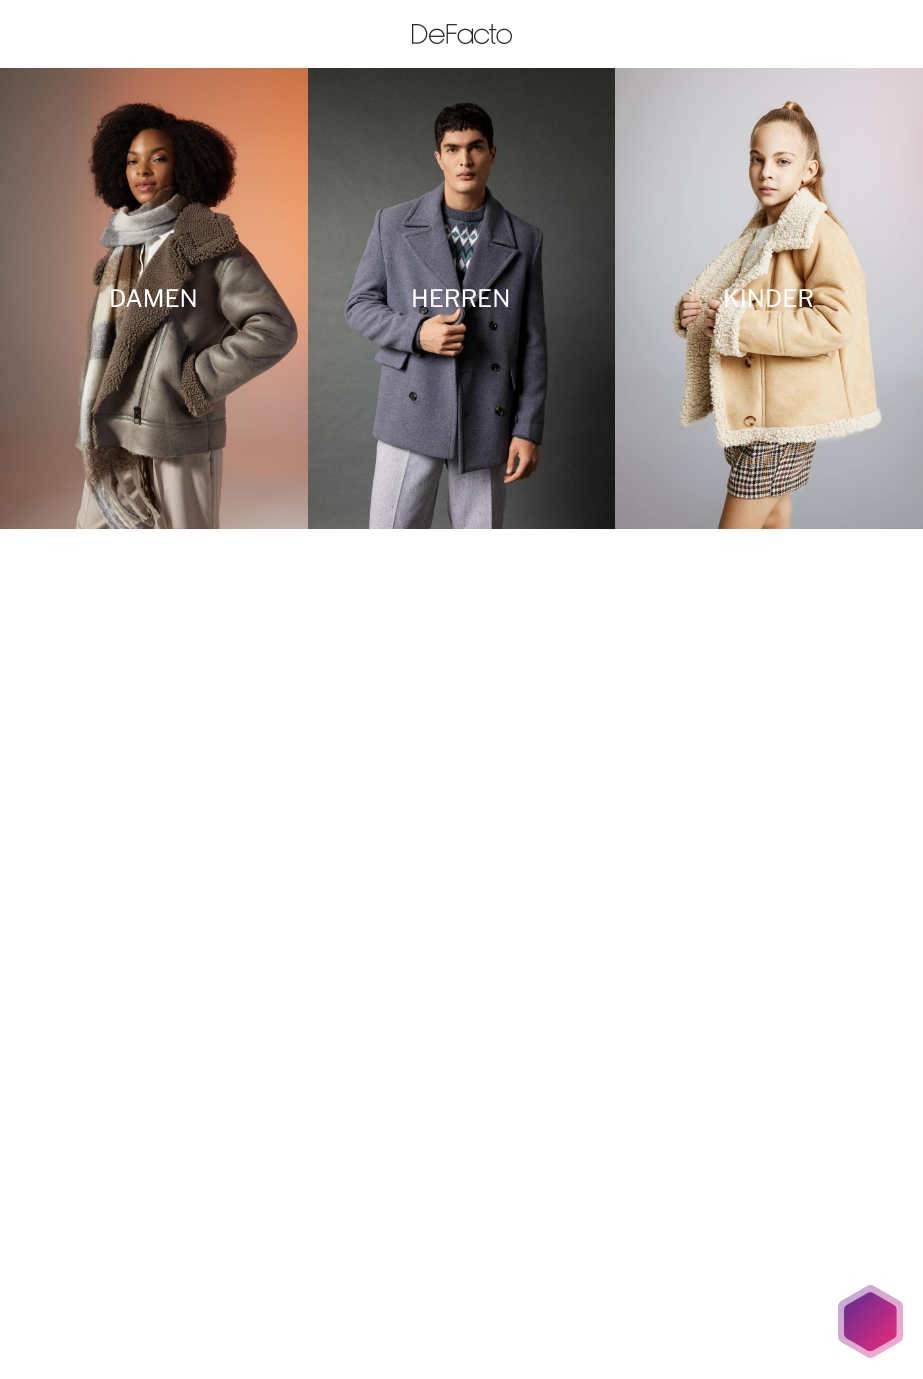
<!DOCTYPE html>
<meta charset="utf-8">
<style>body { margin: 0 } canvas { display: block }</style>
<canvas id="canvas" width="923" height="1379"></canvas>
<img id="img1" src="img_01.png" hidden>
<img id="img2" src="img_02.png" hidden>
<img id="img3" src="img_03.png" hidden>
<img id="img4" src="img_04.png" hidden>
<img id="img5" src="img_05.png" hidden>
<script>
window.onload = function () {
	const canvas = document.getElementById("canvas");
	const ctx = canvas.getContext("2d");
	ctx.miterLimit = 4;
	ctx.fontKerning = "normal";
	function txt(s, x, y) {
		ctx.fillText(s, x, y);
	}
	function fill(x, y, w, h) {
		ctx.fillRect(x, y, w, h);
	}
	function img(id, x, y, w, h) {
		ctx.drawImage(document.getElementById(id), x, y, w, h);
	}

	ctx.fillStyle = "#FFFFFF";
	fill(0, 0, 923, 1379);
	img("img1", 412, 24, 100, 20);
	img("img2", 0, 68, 308, 461);
	img("img3", 308, 68, 307, 461);
	img("img4", 615, 68, 308, 461);
	img("img5", 838, 1285, 65, 73);
	ctx.font = "24px Libre Franklin";
	txt("DAMEN", 109, 307);
	txt("HERREN", 411, 307);
	txt("KINDER", 723, 307);
};
</script>
